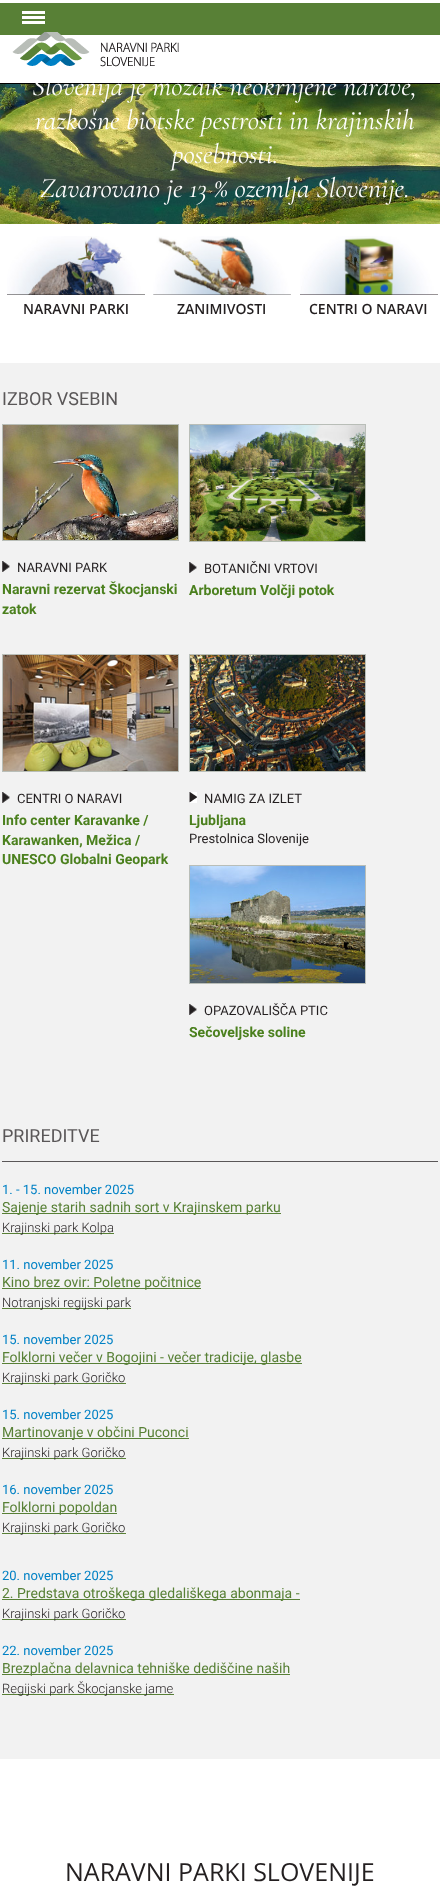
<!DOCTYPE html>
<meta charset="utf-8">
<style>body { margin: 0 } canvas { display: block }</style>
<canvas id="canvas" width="440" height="1889"></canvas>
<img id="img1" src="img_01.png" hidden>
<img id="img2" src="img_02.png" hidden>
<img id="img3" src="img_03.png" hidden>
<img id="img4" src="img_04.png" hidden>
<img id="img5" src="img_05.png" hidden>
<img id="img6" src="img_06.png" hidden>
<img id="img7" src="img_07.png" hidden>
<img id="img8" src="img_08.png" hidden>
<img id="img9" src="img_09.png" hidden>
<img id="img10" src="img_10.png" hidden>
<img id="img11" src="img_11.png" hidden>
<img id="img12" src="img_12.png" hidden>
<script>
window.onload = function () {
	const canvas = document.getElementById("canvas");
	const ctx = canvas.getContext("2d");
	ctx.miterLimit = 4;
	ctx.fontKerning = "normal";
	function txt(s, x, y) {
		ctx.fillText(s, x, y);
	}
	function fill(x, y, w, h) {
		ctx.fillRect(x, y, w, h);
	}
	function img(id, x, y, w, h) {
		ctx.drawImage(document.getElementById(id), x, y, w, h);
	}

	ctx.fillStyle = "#FFFFFF";
	fill(0, 0, 440, 1889);
	ctx.fillStyle = "#588036";
	fill(0, 3, 440, 32);
	ctx.fillStyle = "#FFFFFF";
	fill(22, 11, 23, 3);
	fill(22, 16, 23, 3);
	fill(22, 21, 23, 3);
	ctx.fillStyle = "#000000";
	fill(0, 83, 440, 1);
	img("img1", 12, 32, 167, 35);
	img("img2", 0, 84, 440, 140);
	img("img3", 7, 236, 138, 59);
	img("img4", 153, 236, 138, 59);
	img("img5", 300, 236, 138, 59);
	ctx.fillStyle = "#F2F2F2";
	fill(0, 363, 440, 1396);
	ctx.strokeStyle = "#B9BEB8";
	ctx.strokeRect(2.5, 424.5, 176, 116);
	img("img6", 3, 425, 175, 115);
	img("img7", 2, 561, 8, 11);
	ctx.strokeRect(189.5, 424.5, 176, 117);
	img("img8", 190, 425, 175, 116);
	img("img7", 189, 562, 8, 11);
	ctx.strokeRect(2.5, 654.5, 176, 117);
	img("img9", 3, 655, 175, 116);
	img("img7", 2, 792, 8, 11);
	ctx.strokeRect(189.5, 654.5, 176, 117);
	img("img10", 190, 655, 175, 116);
	img("img11", 189, 792, 8, 11);
	ctx.strokeRect(189.5, 865.5, 176, 118);
	img("img12", 190, 866, 175, 117);
	img("img7", 189, 1004, 8, 11);
	ctx.fillStyle = "#5A5758";
	fill(2, 1161, 436, 1);
	ctx.fillStyle = "#588036";
	fill(2, 1213, 279, 1);
	fill(2, 1233, 112, 1);
	fill(2, 1288, 199, 1);
	fill(2, 1308, 129, 1);
	fill(2, 1363, 300, 1);
	fill(2, 1383, 124, 1);
	fill(2, 1438, 187, 1);
	fill(2, 1458, 124, 1);
	fill(2, 1513, 115, 1);
	fill(2, 1533, 124, 1);
	fill(2, 1599, 298, 1);
	fill(2, 1619, 124, 1);
	fill(2, 1674, 288, 1);
	fill(2, 1694, 172, 1);
	ctx.font = "italic 300 28px Cormorant Garamond";
	ctx.fillStyle = "#FFFFFF";
	txt("Slovenija je mozaik neokrnjene narave,", 32, 95);
	txt("razkošne biotske pestrosti in krajinskih", 35, 129);
	txt("posebnosti.", 172, 163);
	txt("Zavarovano je 13 % ozemlja Slovenije.", 40, 197);
	ctx.font = "600 14px Open Sans";
	ctx.fillStyle = "#231F20";
	txt("NARAVNI PARKI", 23, 314);
	txt("ZANIMIVOSTI", 177, 314);
	txt("CENTRI O NARAVI", 309, 314);
	ctx.font = "18px Roboto";
	ctx.fillStyle = "#5A5758";
	txt("IZBOR VSEBIN", 2, 405);
	ctx.font = "13px Roboto";
	ctx.fillStyle = "#231F20";
	txt("NARAVNI PARK", 17, 572);
	ctx.font = "bold 14px Roboto";
	ctx.fillStyle = "#4B801E";
	txt("Naravni rezervat Škocjanski", 2, 594);
	txt("zatok", 2, 614);
	ctx.font = "13px Roboto";
	ctx.fillStyle = "#231F20";
	txt("BOTANIČNI VRTOVI", 204, 573);
	ctx.font = "bold 14px Roboto";
	ctx.fillStyle = "#4B801E";
	txt("Arboretum Volčji potok", 189, 595);
	ctx.font = "13px Roboto";
	ctx.fillStyle = "#231F20";
	txt("CENTRI O NARAVI", 17, 803);
	ctx.font = "bold 14px Roboto";
	ctx.fillStyle = "#4B801E";
	txt("Info center Karavanke /", 2, 825);
	txt("Karawanken, Mežica /", 2, 845);
	txt("UNESCO Globalni Geopark", 2, 864);
	ctx.font = "13px Roboto";
	ctx.fillStyle = "#231F20";
	txt("NAMIG ZA IZLET", 204, 803);
	ctx.font = "bold 14px Roboto";
	ctx.fillStyle = "#4B801E";
	txt("Ljubljana", 189, 825);
	ctx.font = "13px Roboto";
	ctx.fillStyle = "#231F20";
	txt("Prestolnica Slovenije", 189, 843);
	txt("OPAZOVALIŠČA PTIC", 204, 1015);
	ctx.font = "bold 14px Roboto";
	ctx.fillStyle = "#4B801E";
	txt("Sečoveljske soline", 189, 1037);
	ctx.font = "18px Roboto";
	ctx.fillStyle = "#5A5758";
	txt("PRIREDITVE", 2, 1142);
	ctx.font = "13px Roboto";
	ctx.fillStyle = "#0081C5";
	txt("1. - 15. november 2025", 2, 1194);
	ctx.font = "14px Roboto";
	ctx.fillStyle = "#588036";
	txt("Sajenje starih sadnih sort v Krajinskem parku", 2, 1212);
	ctx.font = "300 13px Roboto";
	ctx.fillStyle = "#231F20";
	txt("Krajinski park Kolpa", 2, 1232);
	ctx.font = "13px Roboto";
	ctx.fillStyle = "#0081C5";
	txt("11. november 2025", 2, 1269);
	ctx.font = "14px Roboto";
	ctx.fillStyle = "#588036";
	txt("Kino brez ovir: Poletne počitnice", 2, 1287);
	ctx.font = "300 13px Roboto";
	ctx.fillStyle = "#231F20";
	txt("Notranjski regijski park", 2, 1307);
	ctx.font = "13px Roboto";
	ctx.fillStyle = "#0081C5";
	txt("15. november 2025", 2, 1344);
	ctx.font = "14px Roboto";
	ctx.fillStyle = "#588036";
	txt("Folklorni večer v Bogojini - večer tradicije, glasbe", 2, 1362);
	ctx.font = "300 13px Roboto";
	ctx.fillStyle = "#231F20";
	txt("Krajinski park Goričko", 2, 1382);
	ctx.font = "13px Roboto";
	ctx.fillStyle = "#0081C5";
	txt("15. november 2025", 2, 1419);
	ctx.font = "14px Roboto";
	ctx.fillStyle = "#588036";
	txt("Martinovanje v občini Puconci", 2, 1437);
	ctx.font = "300 13px Roboto";
	ctx.fillStyle = "#231F20";
	txt("Krajinski park Goričko", 2, 1457);
	ctx.font = "13px Roboto";
	ctx.fillStyle = "#0081C5";
	txt("16. november 2025", 2, 1494);
	ctx.font = "14px Roboto";
	ctx.fillStyle = "#588036";
	txt("Folklorni popoldan", 2, 1512);
	ctx.font = "300 13px Roboto";
	ctx.fillStyle = "#231F20";
	txt("Krajinski park Goričko", 2, 1532);
	ctx.font = "13px Roboto";
	ctx.fillStyle = "#0081C5";
	txt("20. november 2025", 2, 1580);
	ctx.font = "14px Roboto";
	ctx.fillStyle = "#588036";
	txt("2. Predstava otroškega gledališkega abonmaja -", 2, 1598);
	ctx.font = "300 13px Roboto";
	ctx.fillStyle = "#231F20";
	txt("Krajinski park Goričko", 2, 1618);
	ctx.font = "13px Roboto";
	ctx.fillStyle = "#0081C5";
	txt("22. november 2025", 2, 1655);
	ctx.font = "14px Roboto";
	ctx.fillStyle = "#588036";
	txt("Brezplačna delavnica tehniške dediščine naših", 2, 1673);
	ctx.font = "300 13px Roboto";
	ctx.fillStyle = "#231F20";
	txt("Regijski park Škocjanske jame", 2, 1693);
	ctx.font = "25px Open Sans";
	txt("NARAVNI PARKI SLOVENIJE", 65, 1881);
};
</script>
